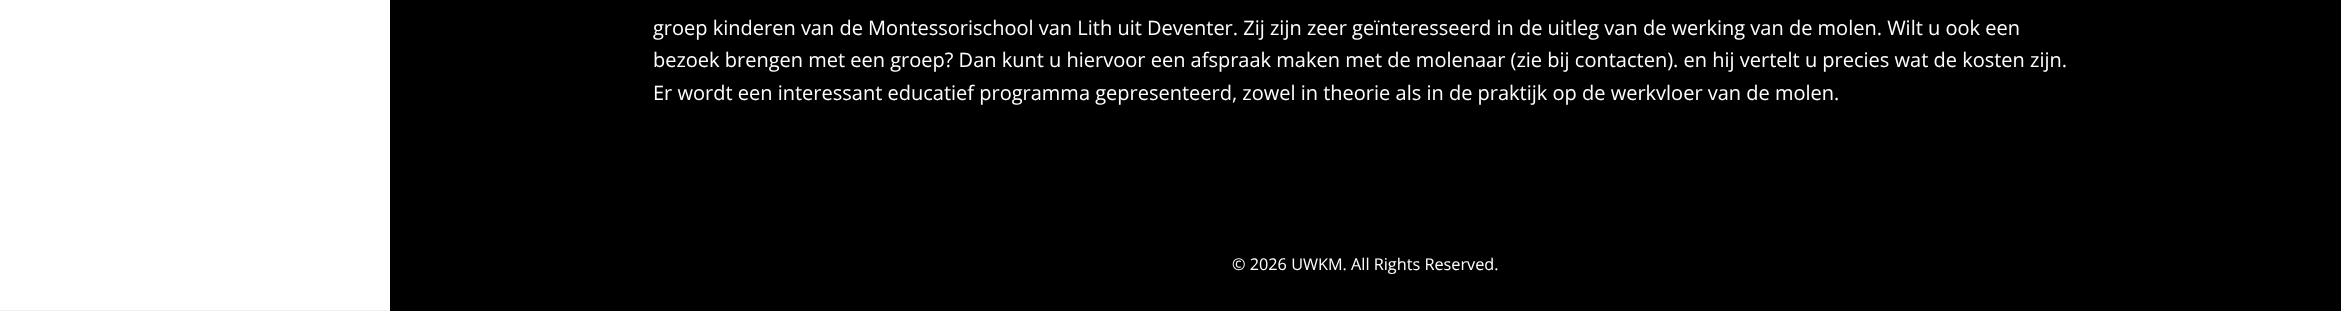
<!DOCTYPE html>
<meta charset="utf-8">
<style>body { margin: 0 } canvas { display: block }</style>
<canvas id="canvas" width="2341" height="311"></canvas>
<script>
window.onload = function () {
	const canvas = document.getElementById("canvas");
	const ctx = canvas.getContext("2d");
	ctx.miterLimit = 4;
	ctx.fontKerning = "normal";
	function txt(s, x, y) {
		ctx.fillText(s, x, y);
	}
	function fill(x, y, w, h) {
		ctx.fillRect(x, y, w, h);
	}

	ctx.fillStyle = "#000000";
	fill(0, 0, 2341, 311);
	ctx.fillStyle = "#FFFFFF";
	fill(0, 0, 390, 310);
	ctx.fillStyle = "#F2F2F2";
	fill(0, 310, 390, 1);
	ctx.font = "20px Open Sans";
	ctx.fillStyle = "#FFFFFF";
	txt("groep kinderen van de Montessorischool van Lith uit Deventer. Zij zijn zeer geïnteresseerd in de uitleg van de werking van de molen. Wilt u ook een", 653, 35);
	txt("bezoek brengen met een groep? Dan kunt u hiervoor een afspraak maken met de molenaar (zie bij contacten). en hij vertelt u precies wat de kosten zijn.", 653, 67);
	txt("Er wordt een interessant educatief programma gepresenteerd, zowel in theorie als in de praktijk op de werkvloer van de molen.", 653, 100);
	ctx.font = "16.25px Open Sans";
	txt("© 2026 UWKM. All Rights Reserved.", 1232, 270);
};
</script>
